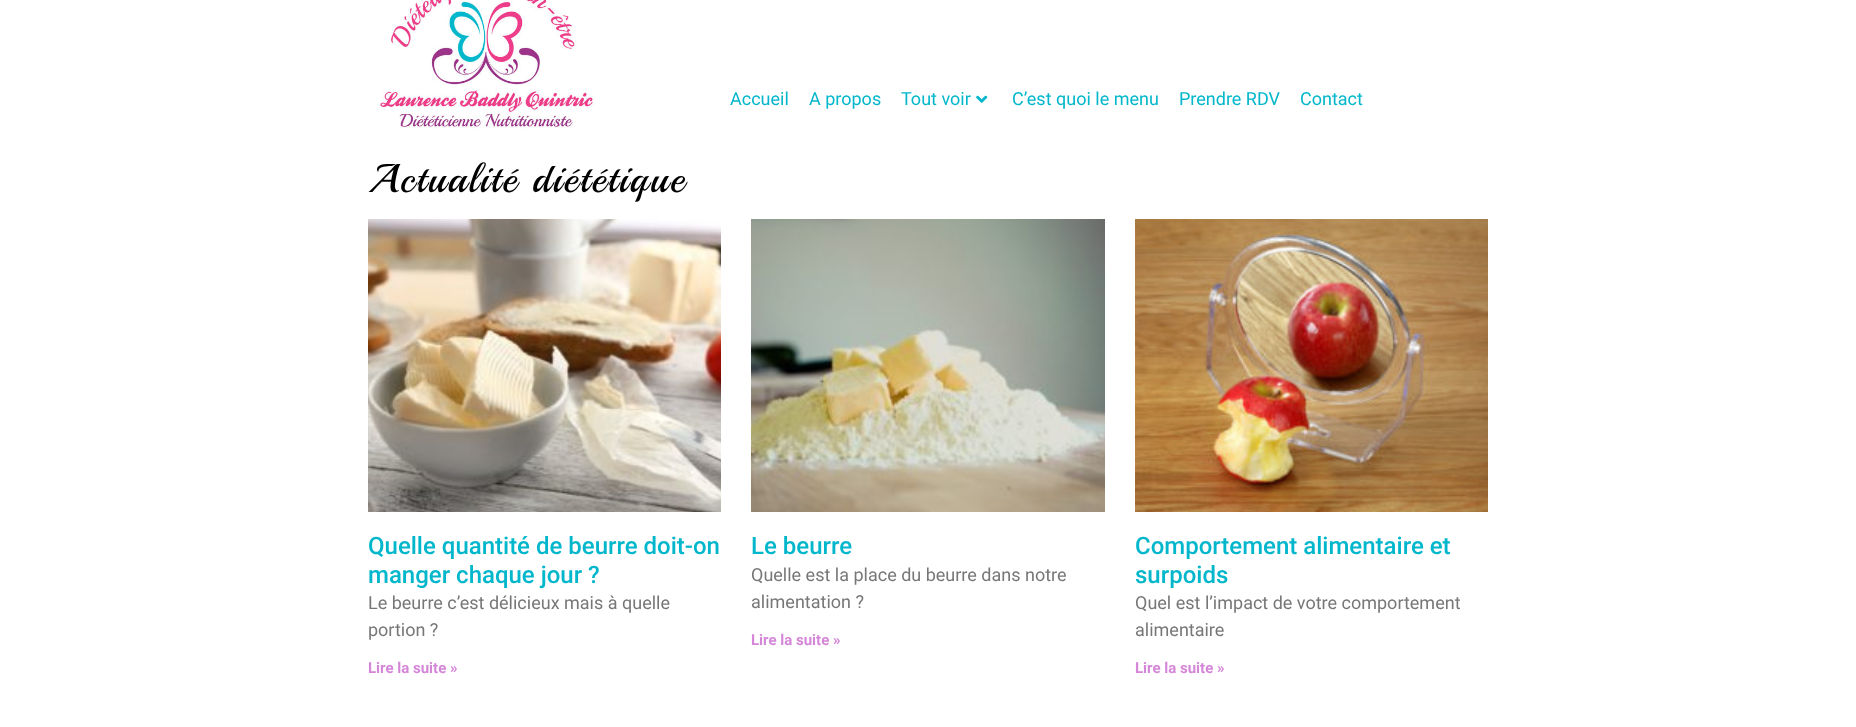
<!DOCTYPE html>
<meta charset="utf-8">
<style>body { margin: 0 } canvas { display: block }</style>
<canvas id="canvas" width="1856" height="727"></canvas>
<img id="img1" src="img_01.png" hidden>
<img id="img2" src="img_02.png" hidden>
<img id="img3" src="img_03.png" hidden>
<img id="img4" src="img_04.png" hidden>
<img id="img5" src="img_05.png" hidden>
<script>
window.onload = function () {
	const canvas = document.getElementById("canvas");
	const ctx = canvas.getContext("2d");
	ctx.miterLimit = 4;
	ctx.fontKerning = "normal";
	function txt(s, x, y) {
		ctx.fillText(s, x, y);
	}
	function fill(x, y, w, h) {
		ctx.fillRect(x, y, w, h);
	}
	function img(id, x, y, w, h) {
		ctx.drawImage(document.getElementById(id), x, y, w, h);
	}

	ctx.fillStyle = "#FFFFFF";
	fill(0, 0, 1856, 727);
	img("img1", 378, 0, 217, 129);
	img("img2", 976, 95, 12, 8);
	img("img3", 368, 219, 353, 293);
	img("img4", 751, 219, 354, 293);
	img("img5", 1135, 219, 353, 293);
	ctx.font = "18px Roboto";
	ctx.fillStyle = "#02B7CB";
	txt("Accueil", 730, 105);
	txt("A propos", 809, 105);
	txt("Tout voir", 901, 105);
	txt("C’est quoi le menu", 1012, 105);
	txt("Prendre RDV", 1179, 105);
	txt("Contact", 1300, 105);
	ctx.letterSpacing = "1.8px";
	ctx.font = "40px Playball";
	ctx.fillStyle = "#000000";
	txt("Actualité diététique", 368, 192);
	ctx.letterSpacing = "0px";
	ctx.font = "500 24px Roboto";
	ctx.fillStyle = "#02B7CB";
	txt("Quelle quantité de beurre doit-on", 368, 554);
	txt("manger chaque jour ?", 368, 583);
	ctx.font = "18px Roboto";
	ctx.fillStyle = "#777777";
	txt("Le beurre c’est délicieux mais à quelle", 368, 609);
	txt("portion ?", 368, 636);
	ctx.font = "bold 15px Roboto";
	ctx.fillStyle = "#D586D8";
	txt("Lire la suite »", 368, 673);
	ctx.font = "500 24px Roboto";
	ctx.fillStyle = "#02B7CB";
	txt("Le beurre", 751, 554);
	ctx.font = "18px Roboto";
	ctx.fillStyle = "#777777";
	txt("Quelle est la place du beurre dans notre", 751, 581);
	txt("alimentation ?", 751, 608);
	ctx.font = "bold 15px Roboto";
	ctx.fillStyle = "#D586D8";
	txt("Lire la suite »", 751, 645);
	ctx.font = "500 24px Roboto";
	ctx.fillStyle = "#02B7CB";
	txt("Comportement alimentaire et", 1135, 554);
	txt("surpoids", 1135, 583);
	ctx.font = "18px Roboto";
	ctx.fillStyle = "#777777";
	txt("Quel est l’impact de votre comportement", 1135, 609);
	txt("alimentaire", 1135, 636);
	ctx.font = "bold 15px Roboto";
	ctx.fillStyle = "#D586D8";
	txt("Lire la suite »", 1135, 673);
};
</script>
